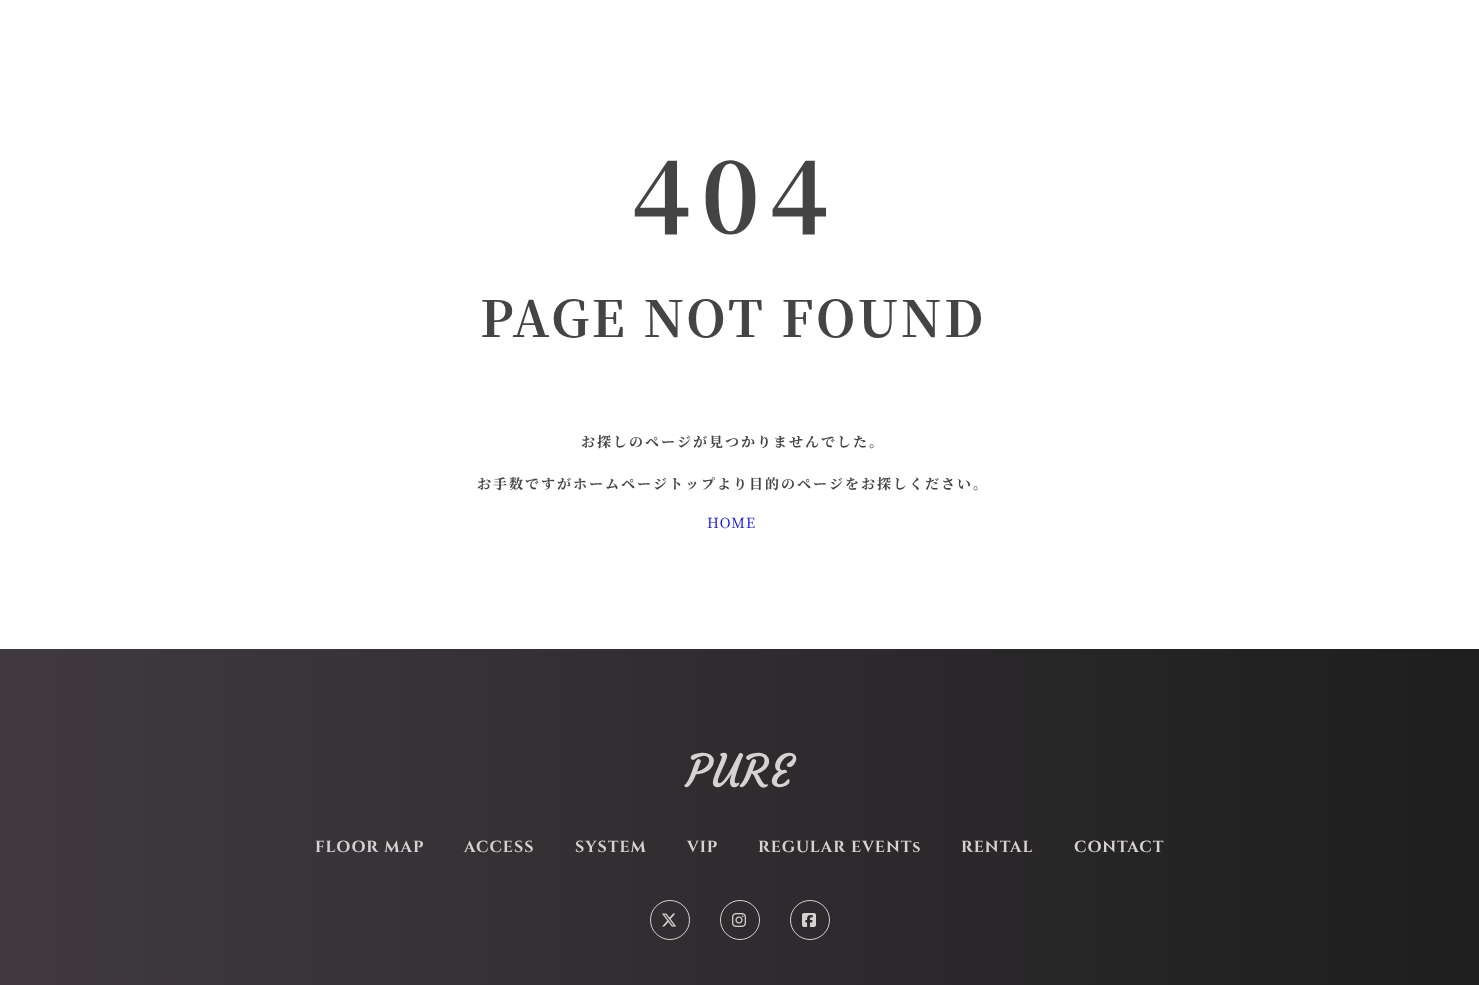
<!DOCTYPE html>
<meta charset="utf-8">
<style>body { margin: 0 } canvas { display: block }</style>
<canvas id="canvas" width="1479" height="985"></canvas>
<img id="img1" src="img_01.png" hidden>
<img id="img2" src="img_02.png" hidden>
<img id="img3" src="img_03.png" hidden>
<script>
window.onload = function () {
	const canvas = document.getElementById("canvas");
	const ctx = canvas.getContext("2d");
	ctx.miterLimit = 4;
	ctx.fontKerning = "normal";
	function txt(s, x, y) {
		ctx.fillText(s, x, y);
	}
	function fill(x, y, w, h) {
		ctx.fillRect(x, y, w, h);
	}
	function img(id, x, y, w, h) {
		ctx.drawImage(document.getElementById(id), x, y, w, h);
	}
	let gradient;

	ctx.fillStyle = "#FFFFFF";
	fill(0, 0, 1479, 985);
	gradient = ctx.createLinearGradient(0, 835, 1479, 835);
	gradient.addColorStop(0, "#403A40");
	gradient.addColorStop(1, "#1E1E1E");
	ctx.fillStyle = gradient;
	fill(0, 649, 1479, 336);
	ctx.beginPath();
	ctx.arc(670, 920, 19.5, 0, Math.PI * 2);
	ctx.strokeStyle = "#D6D2D2";
	ctx.stroke();
	img("img1", 662, 913, 15, 14);
	ctx.beginPath();
	ctx.arc(740, 920, 19.5, 0, Math.PI * 2);
	ctx.stroke();
	img("img2", 732, 913, 14, 14);
	ctx.beginPath();
	ctx.arc(810, 920, 19.5, 0, Math.PI * 2);
	ctx.stroke();
	img("img3", 802, 913, 14, 14);
	ctx.letterSpacing = "10px";
	ctx.font = "bold 100px Noto Serif JP";
	ctx.fillStyle = "#444444";
	txt("404", 632, 233);
	ctx.letterSpacing = "3px";
	ctx.font = "bold 50px Noto Serif JP";
	txt("PAGE NOT FOUND", 480, 337);
	ctx.letterSpacing = "2px";
	ctx.font = "bold 14px Noto Serif JP";
	txt("お探しのページが見つかりませんでした。", 581, 447);
	txt("お手数ですがホームページトップより目的のページをお探しください。", 477, 489);
	ctx.letterSpacing = "1px";
	ctx.font = "14px Noto Serif JP";
	ctx.fillStyle = "#0000EE";
	txt("HOME", 707, 528);
	ctx.font = "45px Courgette";
	ctx.fillStyle = "#D6D2D2";
	txt("PURE", 686, 787);
	ctx.font = "bold 16px Cinzel";
	txt("FLOOR MAP", 315, 852);
	txt("ACCESS", 464, 852);
	txt("SYSTEM", 575, 852);
	txt("VIP", 687, 852);
	txt("REGULAR EVENTs", 758, 852);
	txt("RENTAL", 961, 852);
	txt("CONTACT", 1074, 852);
};
</script>
